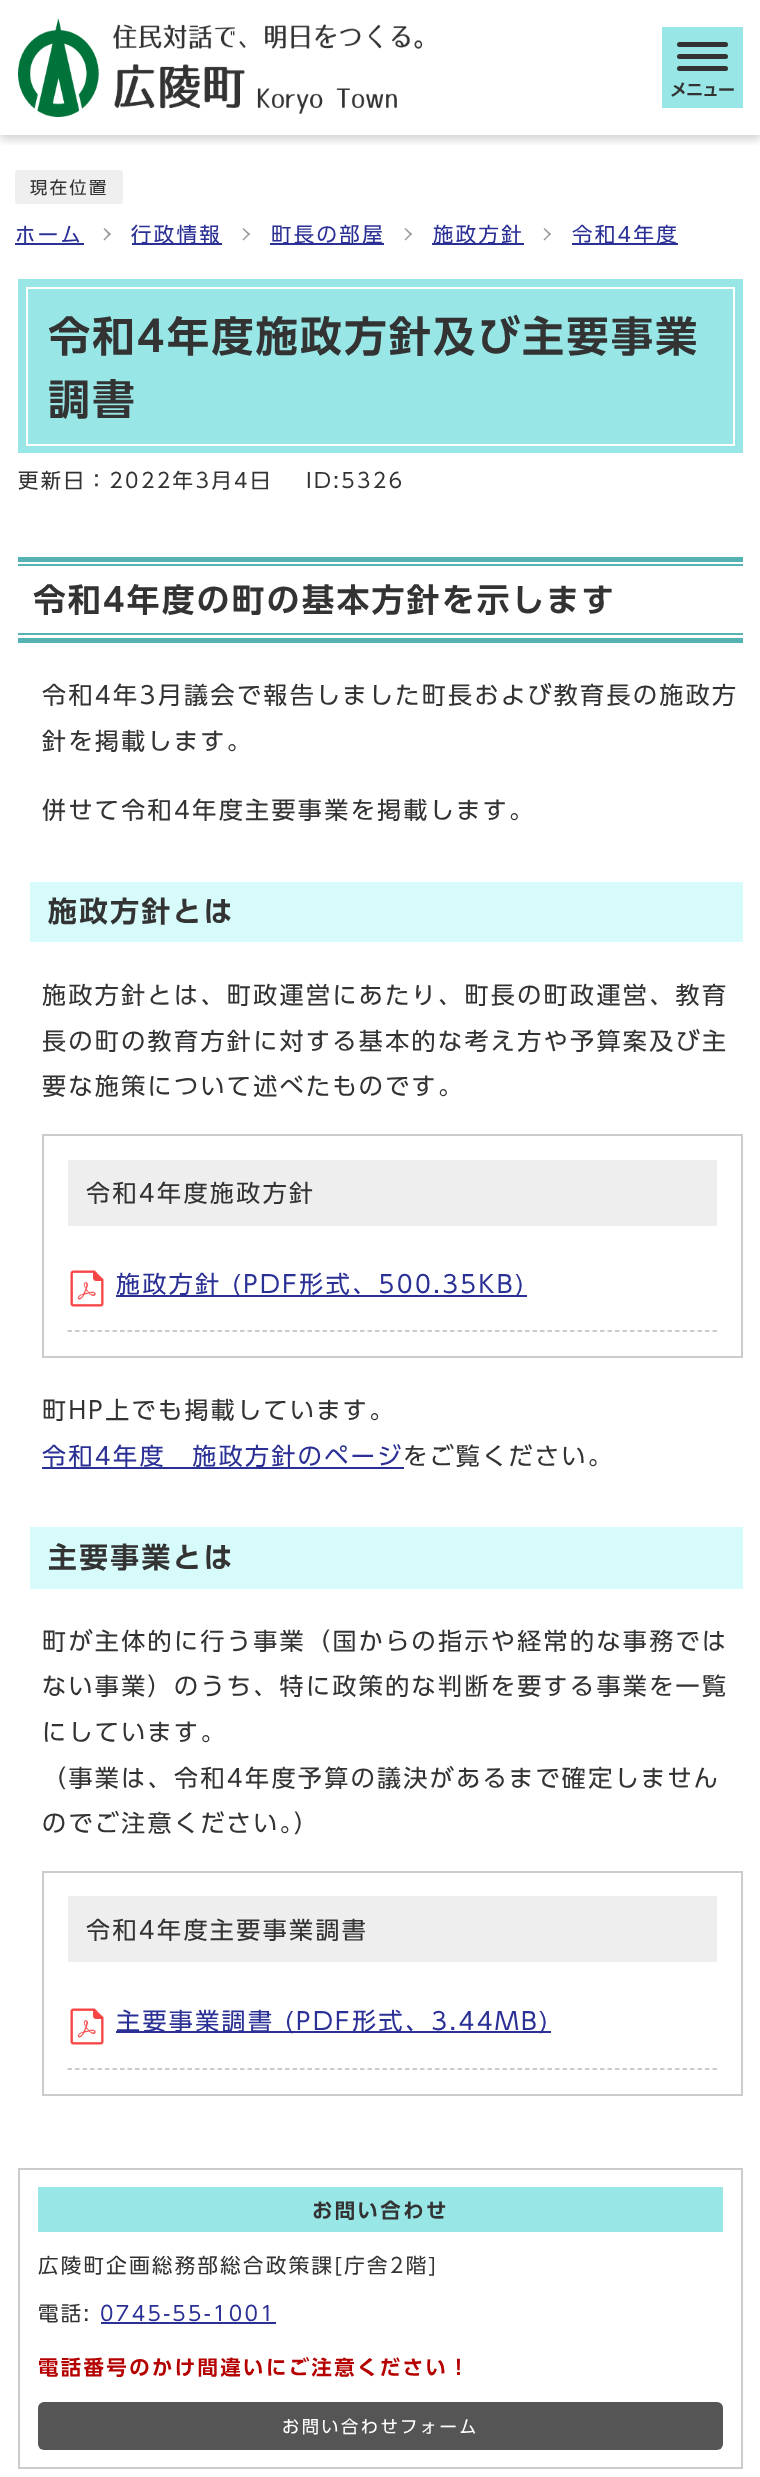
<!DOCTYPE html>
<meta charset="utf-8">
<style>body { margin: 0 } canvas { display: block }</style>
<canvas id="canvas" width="760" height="2477"></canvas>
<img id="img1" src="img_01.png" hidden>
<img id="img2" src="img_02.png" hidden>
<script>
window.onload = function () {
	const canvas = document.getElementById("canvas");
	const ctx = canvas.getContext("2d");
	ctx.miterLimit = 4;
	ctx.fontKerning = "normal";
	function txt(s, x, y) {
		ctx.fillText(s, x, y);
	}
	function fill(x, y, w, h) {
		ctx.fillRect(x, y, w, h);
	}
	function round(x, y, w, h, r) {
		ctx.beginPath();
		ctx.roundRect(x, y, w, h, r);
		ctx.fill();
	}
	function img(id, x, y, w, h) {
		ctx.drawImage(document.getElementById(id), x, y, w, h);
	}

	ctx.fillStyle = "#FFFFFF";
	fill(0, 0, 760, 2477);
	ctx.save();
	ctx.beginPath();
	ctx.rect(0, 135, 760, 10);
	ctx.clip();
	ctx.fillStyle = "rgba(0, 0, 0, 0.16)";
	ctx.filter = "blur(4.5px)";
	ctx.beginPath();
	ctx.rect(0, 5, 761, 135);
	ctx.fill();
	ctx.filter = "none";
	ctx.restore();
	img("img1", 18, 18, 405, 99);
	ctx.fillStyle = "#98E6E6";
	fill(662, 27, 81, 81);
	ctx.fillStyle = "#333333";
	round(677, 42, 51, 5, 2.5);
	round(677, 54, 51, 5, 2.5);
	round(677, 66, 51, 5, 2.5);
	ctx.fillStyle = "#EFEFEF";
	round(15, 170, 108, 34, 3);
	ctx.fillStyle = "#2B3095";
	fill(15, 243, 69, 2);
	ctx.fillStyle = "#999999";
	ctx.beginPath();
	ctx.moveTo(103.5, 229);
	ctx.lineTo(104.5, 228);
	ctx.lineTo(111, 234);
	ctx.lineTo(109.5, 235.5);
	ctx.closePath();
	ctx.fill();
	ctx.beginPath();
	ctx.moveTo(103.5, 239.5);
	ctx.lineTo(109.5, 233);
	ctx.lineTo(111, 234);
	ctx.lineTo(104.5, 240.5);
	ctx.closePath();
	ctx.fill();
	ctx.fillStyle = "#2B3095";
	fill(132, 243, 90, 2);
	ctx.fillStyle = "#999999";
	ctx.beginPath();
	ctx.moveTo(242.5, 229);
	ctx.lineTo(243.5, 228);
	ctx.lineTo(250, 234);
	ctx.lineTo(249, 235.5);
	ctx.closePath();
	ctx.fill();
	ctx.beginPath();
	ctx.moveTo(242.5, 239.5);
	ctx.lineTo(249, 233);
	ctx.lineTo(250, 234);
	ctx.lineTo(243.5, 240.5);
	ctx.closePath();
	ctx.fill();
	ctx.fillStyle = "#2B3095";
	fill(270, 243, 114, 2);
	ctx.fillStyle = "#999999";
	ctx.beginPath();
	ctx.moveTo(404.5, 229);
	ctx.lineTo(405.5, 228);
	ctx.lineTo(412, 234);
	ctx.lineTo(411, 235.5);
	ctx.closePath();
	ctx.fill();
	ctx.beginPath();
	ctx.moveTo(404.5, 239.5);
	ctx.lineTo(411, 233);
	ctx.lineTo(412, 234);
	ctx.lineTo(405.5, 240.5);
	ctx.closePath();
	ctx.fill();
	ctx.fillStyle = "#2B3095";
	fill(432, 243, 92, 2);
	ctx.fillStyle = "#999999";
	ctx.beginPath();
	ctx.moveTo(543.5, 229);
	ctx.lineTo(544.5, 228);
	ctx.lineTo(551, 234);
	ctx.lineTo(550, 235.5);
	ctx.closePath();
	ctx.fill();
	ctx.beginPath();
	ctx.moveTo(543.5, 239.5);
	ctx.lineTo(550, 233);
	ctx.lineTo(551, 234);
	ctx.lineTo(544.5, 240.5);
	ctx.closePath();
	ctx.fill();
	ctx.fillStyle = "#2B3095";
	fill(572, 243, 106, 2);
	ctx.fillStyle = "#98E6E6";
	fill(18, 279, 725, 174);
	ctx.strokeStyle = "#FFFFFF";
	ctx.lineWidth = 2;
	ctx.strokeRect(27, 288, 707, 157);
	ctx.fillStyle = "#56B3B4";
	fill(18, 557, 725, 5);
	fill(18, 638, 725, 5);
	fill(18, 564, 725, 2);
	fill(18, 633, 725, 2);
	ctx.fillStyle = "#D7FAFA";
	fill(30, 882, 713, 60);
	ctx.strokeStyle = "#CCCCCC";
	ctx.strokeRect(43, 1135, 699, 222);
	ctx.fillStyle = "#EEEEEE";
	fill(68, 1160, 649, 66);
	ctx.beginPath();
	ctx.moveTo(67.5, 1331);
	ctx.lineTo(717, 1331);
	ctx.strokeStyle = "#BBBBBB";
	ctx.lineWidth = 1.5;
	ctx.setLineDash([4.5, 3]);
	ctx.stroke();
	img("img2", 70, 1270, 34, 37);
	ctx.fillStyle = "#2B3095";
	fill(116, 1295, 411, 2);
	fill(42, 1467, 362, 2);
	ctx.fillStyle = "#D7FAFA";
	fill(30, 1527, 713, 62);
	ctx.strokeStyle = "#CCCCCC";
	ctx.lineWidth = 2;
	ctx.setLineDash([]);
	ctx.strokeRect(43, 1872, 699, 223);
	ctx.fillStyle = "#EEEEEE";
	fill(68, 1896, 649, 66);
	ctx.beginPath();
	ctx.moveTo(67.5, 2069);
	ctx.lineTo(717, 2069);
	ctx.strokeStyle = "#BBBBBB";
	ctx.lineWidth = 1.5;
	ctx.setLineDash([4.5, 3]);
	ctx.stroke();
	img("img2", 70, 2008, 34, 37);
	ctx.fillStyle = "#2B3095";
	fill(116, 2031, 435, 2);
	ctx.strokeStyle = "#CCCCCC";
	ctx.lineWidth = 2;
	ctx.setLineDash([]);
	ctx.strokeRect(19, 2169, 723, 299);
	ctx.fillStyle = "#98E6E6";
	fill(38, 2187, 685, 45);
	ctx.fillStyle = "#2B3095";
	fill(101, 2322, 175, 2);
	ctx.fillStyle = "#555555";
	round(38, 2402, 685, 48, 6);
	ctx.letterSpacing = "-1px";
	ctx.font = "600 17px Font";
	ctx.fillStyle = "#333333";
	txt("メニュー", 670, 96);
	ctx.letterSpacing = "2.4px";
	ctx.font = "17.3px Font";
	txt("現在位置", 30, 194);
	ctx.font = "20.4px Font";
	ctx.fillStyle = "#2B3095";
	txt("ホーム", 15, 242);
	txt("行政情報", 131, 242);
	txt("町長の部屋", 271, 242);
	txt("施政方針", 433, 242);
	txt("令和4年度", 572, 242);
	ctx.font = "600 42px Font";
	ctx.fillStyle = "#333333";
	txt("令和4年度施政方針及び主要事業", 48, 352);
	txt("調書", 48, 415);
	ctx.font = "20.4px Font";
	txt("更新日：2022年3月4日", 18, 488);
	txt("ID:5326", 306, 488);
	ctx.font = "600 32.6px Font";
	txt("令和4年度の町の基本方針を示します", 33, 612);
	ctx.font = "24px Font";
	txt("令和4年3月議会で報告しました町長および教育長の施政方", 42, 704);
	txt("針を掲載します。", 42, 750);
	txt("併せて令和4年度主要事業を掲載します。", 42, 819);
	ctx.font = "600 28.75px Font";
	txt("施政方針とは", 48, 922);
	ctx.font = "24px Font";
	txt("施政方針とは、町政運営にあたり、町長の町政運営、教育", 42, 1004);
	txt("長の町の教育方針に対する基本的な考え方や予算案及び主", 42, 1050);
	txt("要な施策について述べたものです。", 42, 1095);
	txt("令和4年度施政方針", 86, 1202);
	ctx.fillStyle = "#2B3095";
	txt("施政方針 (PDF形式、500.35KB)", 116, 1293);
	ctx.fillStyle = "#333333";
	txt("町HP上でも掲載しています。", 42, 1419);
	ctx.fillStyle = "#2B3095";
	txt("令和4年度　施政方針のページ", 42, 1465);
	ctx.fillStyle = "#333333";
	txt("をご覧ください。", 403, 1465);
	ctx.font = "600 28.75px Font";
	txt("主要事業とは", 48, 1568);
	ctx.font = "24px Font";
	txt("町が主体的に行う事業（国からの指示や経常的な事務では", 42, 1650);
	txt("ない事業）のうち、特に政策的な判断を要する事業を一覧", 42, 1695);
	txt("にしています。", 42, 1741);
	txt("（事業は、令和4年度予算の議決があるまで確定しません", 42, 1787);
	txt("のでご注意ください。）", 42, 1832);
	txt("令和4年度主要事業調書", 86, 1939);
	ctx.fillStyle = "#2B3095";
	txt("主要事業調書 (PDF形式、3.44MB)", 116, 2030);
	ctx.font = "600 20.4px Font";
	ctx.fillStyle = "#333333";
	txt("お問い合わせ", 312, 2218);
	ctx.font = "20.4px Font";
	txt("広陵町企画総務部総合政策課[庁舎2階]", 38, 2273);
	txt("電話:", 38, 2321);
	ctx.fillStyle = "#2B3095";
	txt("0745-55-1001", 100, 2321);
	ctx.font = "600 20.4px Font";
	ctx.fillStyle = "#B50000";
	txt("電話番号のかけ間違いにご注意ください！", 38, 2375);
	ctx.font = "17.3px Font";
	ctx.fillStyle = "#FFFFFF";
	txt("お問い合わせフォーム", 282, 2433);
};
</script>
